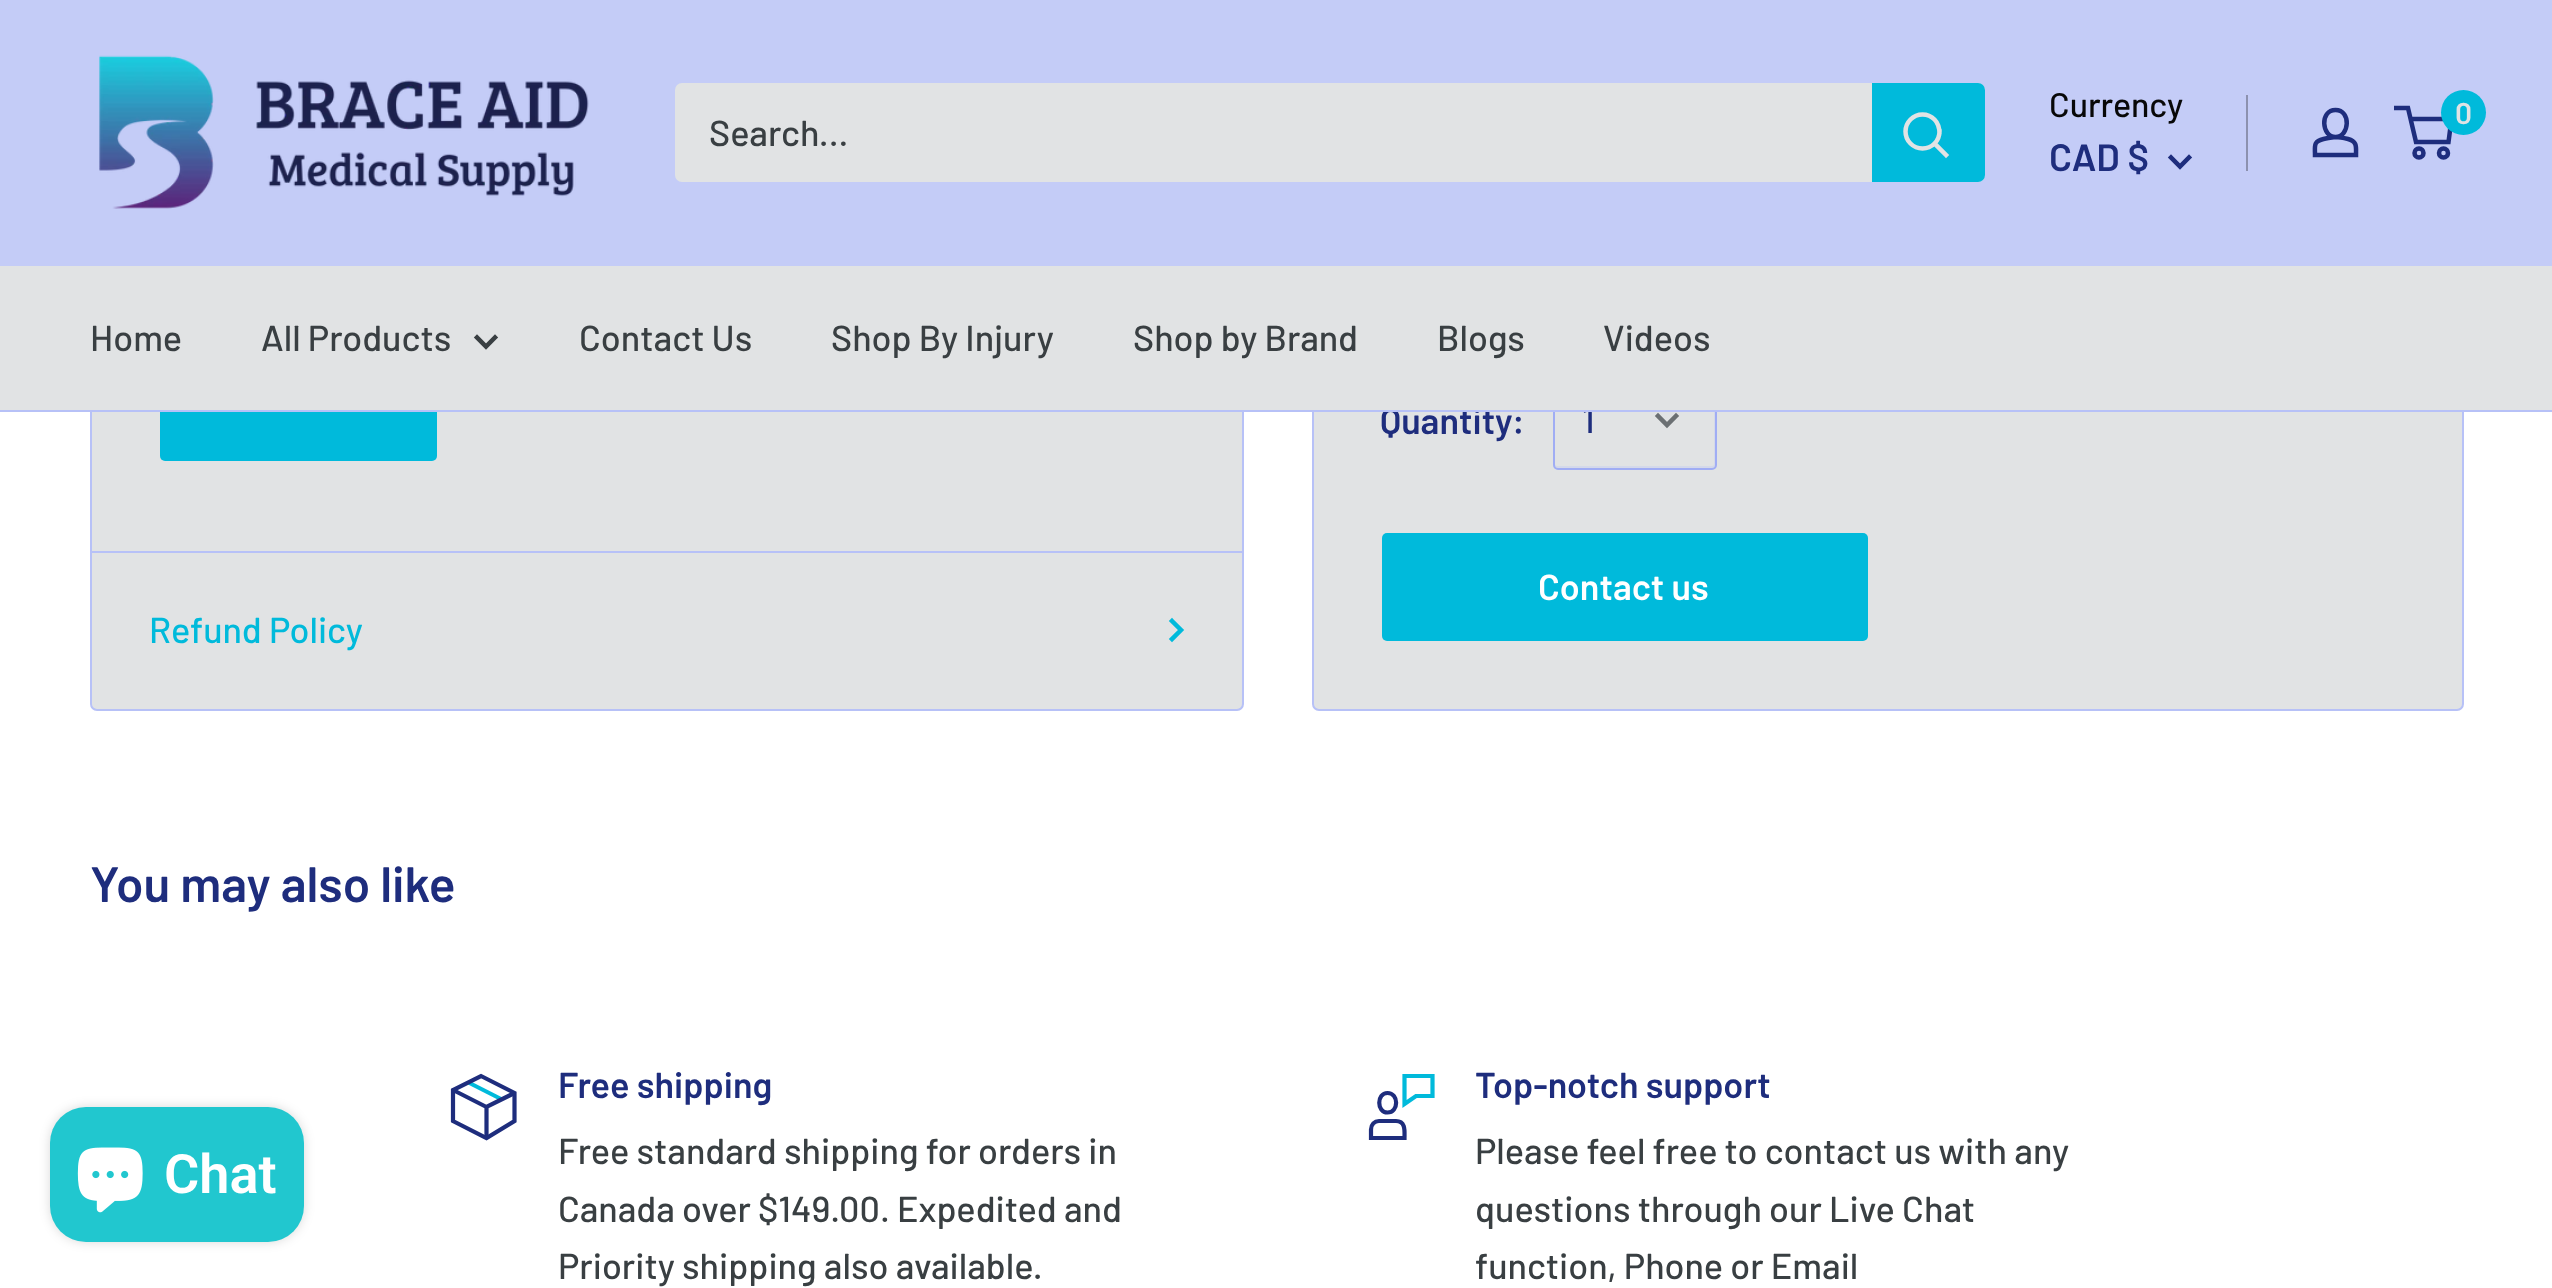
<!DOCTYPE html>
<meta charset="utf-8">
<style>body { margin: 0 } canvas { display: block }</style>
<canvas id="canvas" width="2552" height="1288"></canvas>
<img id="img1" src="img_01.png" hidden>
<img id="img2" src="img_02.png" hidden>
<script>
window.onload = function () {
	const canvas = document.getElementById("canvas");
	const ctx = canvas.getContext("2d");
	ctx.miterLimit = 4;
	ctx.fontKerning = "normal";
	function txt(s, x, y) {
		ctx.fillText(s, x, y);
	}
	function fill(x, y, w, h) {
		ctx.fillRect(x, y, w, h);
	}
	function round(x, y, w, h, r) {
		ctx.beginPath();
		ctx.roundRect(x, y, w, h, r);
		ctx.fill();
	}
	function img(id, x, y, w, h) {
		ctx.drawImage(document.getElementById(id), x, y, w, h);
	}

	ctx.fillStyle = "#FFFFFF";
	fill(0, 0, 2552, 1288);
	ctx.fillStyle = "#E1E3E4";
	ctx.beginPath();
	ctx.roundRect(1313, -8, 1150, 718, 6);
	ctx.fill();
	ctx.strokeStyle = "#B7C1F7";
	ctx.lineWidth = 2;
	ctx.stroke();
	ctx.beginPath();
	ctx.roundRect(91, -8, 1152, 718, 6);
	ctx.fill();
	ctx.stroke();
	ctx.fillStyle = "#C4CCF7";
	fill(0, 0, 2552, 266);
	img("img1", 99, 55, 490, 154);
	ctx.fillStyle = "#E1E3E4";
	round(675, 83, 1310, 99, 7);
	ctx.fillStyle = "#00BADB";
	ctx.beginPath();
	ctx.roundRect(1872, 83, 113, 99, [0, 7, 7, 0]);
	ctx.fill();
	ctx.beginPath();
	ctx.moveTo(1946, 155);
	ctx.lineTo(1935, 144);
	ctx.strokeStyle = "#E1E3E4";
	ctx.lineWidth = 4.5;
	ctx.lineCap = "square";
	ctx.stroke();
	ctx.beginPath();
	ctx.arc(1922.5, 131.5, 17, 0, Math.PI * 2);
	ctx.stroke();
	ctx.beginPath();
	ctx.moveTo(2189, 157.5);
	ctx.lineTo(2180, 166.5);
	ctx.lineTo(2171, 157.5);
	ctx.strokeStyle = "#1E2D7D";
	ctx.stroke();
	ctx.fillStyle = "#8C91AF";
	fill(2246, 95, 2, 76);
	ctx.beginPath();
	ctx.moveTo(2335.5, 137);
	ctx.bezierCurveTo(2339.5, 137, 2344, 138, 2348, 139);
	ctx.bezierCurveTo(2357.5, 141.5, 2356, 147, 2356, 155);
	ctx.lineTo(2315, 155);
	ctx.bezierCurveTo(2315, 146, 2313, 141.5, 2323.5, 139);
	ctx.bezierCurveTo(2327.5, 138, 2331.5, 137.5, 2335.5, 137);
	ctx.closePath();
	ctx.moveTo(2335.5, 137);
	ctx.bezierCurveTo(2321.5, 137, 2319.5, 110, 2335.5, 110);
	ctx.bezierCurveTo(2351.5, 110, 2349.5, 137, 2335.5, 137);
	ctx.closePath();
	ctx.lineCap = "butt";
	ctx.stroke();
	ctx.beginPath();
	ctx.arc(2419, 153, 4.5, 0, Math.PI * 2);
	ctx.stroke();
	ctx.beginPath();
	ctx.arc(2443.5, 153, 4.5, 0, Math.PI * 2);
	ctx.stroke();
	ctx.beginPath();
	ctx.moveTo(2410.5, 119);
	ctx.lineTo(2451.5, 119);
	ctx.lineTo(2448.5, 142);
	ctx.lineTo(2416, 142);
	ctx.lineTo(2408, 108);
	ctx.lineTo(2394, 108);
	ctx.stroke();
	ctx.fillStyle = "#00BADB";
	ctx.beginPath();
	ctx.arc(2463.5, 112.5, 22.5, 0, Math.PI * 2);
	ctx.fill();
	ctx.fillStyle = "#D4D9EA";
	ctx.beginPath();
	ctx.moveTo(1555, 464);
	ctx.lineTo(1555, 466);
	ctx.bezierCurveTo(1555, 467, 1556, 468, 1557, 468);
	ctx.lineTo(1713, 468);
	ctx.bezierCurveTo(1714, 468, 1715, 467, 1715, 466);
	ctx.lineTo(1715, 376);
	ctx.bezierCurveTo(1715, 375, 1715, 375, 1714, 374);
	ctx.lineTo(1714, 464);
	ctx.bezierCurveTo(1714, 465, 1713, 466, 1712, 466);
	ctx.lineTo(1557, 466);
	ctx.bezierCurveTo(1556, 466, 1555, 465, 1555, 464);
	ctx.closePath();
	ctx.fill();
	ctx.beginPath();
	ctx.roundRect(1554, 372, 162, 97, 4);
	ctx.strokeStyle = "#A0ADF4";
	ctx.lineWidth = 2;
	ctx.stroke();
	ctx.beginPath();
	ctx.moveTo(1676, 416);
	ctx.lineTo(1667, 425);
	ctx.lineTo(1658, 416);
	ctx.strokeStyle = "#6B7073";
	ctx.lineWidth = 4.5;
	ctx.lineCap = "square";
	ctx.stroke();
	ctx.fillStyle = "#00BADB";
	round(1382, 533, 486, 108, 5);
	round(160, 353, 277, 108, 5);
	ctx.fillStyle = "#B7C1F7";
	fill(92, 551, 1150, 2);
	ctx.beginPath();
	ctx.moveTo(1172, 621);
	ctx.lineTo(1181, 630);
	ctx.lineTo(1172, 639);
	ctx.strokeStyle = "#00BADB";
	ctx.stroke();
	ctx.fillStyle = "rgba(0, 0, 0, 0.15)";
	ctx.filter = "blur(5.5px)";
	ctx.beginPath();
	ctx.roundRect(50, 1107, 254, 135, 36);
	ctx.fill();
	ctx.filter = "none";
	ctx.fillStyle = "#21C7CF";
	round(50, 1107, 254, 135, 36);
	img("img2", 77, 1147, 66, 66);
	ctx.beginPath();
	ctx.moveTo(468.5, 1082.5);
	ctx.lineTo(502, 1099.5);
	ctx.lineWidth = 4.2;
	ctx.lineCap = "butt";
	ctx.stroke();
	ctx.beginPath();
	ctx.moveTo(514.5, 1093);
	ctx.lineTo(486.5, 1107);
	ctx.lineTo(453, 1090);
	ctx.moveTo(486.5, 1107);
	ctx.lineTo(486.5, 1138);
	ctx.strokeStyle = "#1E2D7D";
	ctx.stroke();
	ctx.beginPath();
	ctx.moveTo(514.5, 1093);
	ctx.lineTo(514.5, 1121);
	ctx.lineTo(486.5, 1138);
	ctx.lineTo(453, 1121);
	ctx.lineTo(453, 1090);
	ctx.lineTo(481, 1076);
	ctx.closePath();
	ctx.lineCap = "square";
	ctx.stroke();
	ctx.beginPath();
	ctx.moveTo(1396, 1121);
	ctx.lineTo(1379, 1121);
	ctx.bezierCurveTo(1374.5, 1121, 1371, 1124.5, 1371, 1129.5);
	ctx.lineTo(1371, 1138);
	ctx.lineTo(1404.5, 1138);
	ctx.bezierCurveTo(1404.5, 1131.5, 1406, 1121, 1396, 1121);
	ctx.closePath();
	ctx.moveTo(1387.5, 1112.5);
	ctx.bezierCurveTo(1376.5, 1112.5, 1376.5, 1093, 1387.5, 1093);
	ctx.bezierCurveTo(1399, 1093, 1399, 1112.5, 1387.5, 1112.5);
	ctx.closePath();
	ctx.stroke();
	ctx.beginPath();
	ctx.moveTo(1404.5, 1076);
	ctx.lineTo(1404.5, 1104);
	ctx.lineTo(1416, 1096);
	ctx.lineTo(1432.5, 1096);
	ctx.lineTo(1432.5, 1076);
	ctx.closePath();
	ctx.strokeStyle = "#00BADB";
	ctx.stroke();
	ctx.font = "500 36px Barlow";
	ctx.fillStyle = "#393F42";
	txt("Search...", 709, 146);
	ctx.font = "500 34px Barlow";
	ctx.fillStyle = "#080808";
	txt("Currency", 2049, 117);
	ctx.font = "600 38px Barlow";
	ctx.fillStyle = "#1E2D7D";
	txt("CAD $", 2049, 171);
	ctx.font = "600 30px Barlow";
	ctx.fillStyle = "#E1E3E4";
	txt("0", 2455, 124);
	ctx.font = "600 36px Barlow";
	ctx.fillStyle = "#1E2D7D";
	txt("Quantity:", 1380, 434);
	ctx.font = "500 36px Barlow";
	txt("1", 1582, 433);
	ctx.fillStyle = "#E1E3E4";
	fill(0, 266, 2552, 144);
	ctx.fillStyle = "#393F42";
	txt("Videos", 1603, 351);
	txt("Blogs", 1437, 351);
	txt("Shop by Brand", 1133, 351);
	txt("Shop By Injury", 831, 351);
	txt("Contact Us", 579, 351);
	ctx.beginPath();
	ctx.moveTo(495, 337.5);
	ctx.lineTo(486, 346.5);
	ctx.lineTo(477, 337.5);
	ctx.strokeStyle = "#393F42";
	ctx.lineWidth = 4.5;
	ctx.stroke();
	txt("All Products", 261, 351);
	txt("Home", 90, 351);
	ctx.fillStyle = "#B7C1F7";
	fill(0, 410, 2552, 2);
	ctx.font = "600 36px Barlow";
	ctx.fillStyle = "#FFFFFF";
	txt("Contact us", 1538, 600);
	ctx.font = "500 36px Barlow";
	ctx.fillStyle = "#00BADB";
	txt("Refund Policy", 149, 643);
	ctx.font = "600 49.5px Barlow";
	ctx.fillStyle = "#1E2D7D";
	txt("You may also like", 90, 902);
	ctx.font = "600 54px Roboto";
	ctx.fillStyle = "#FFFFFF";
	txt("Chat", 164, 1193);
	ctx.font = "600 36px Barlow";
	ctx.fillStyle = "#1E2D7D";
	txt("Free shipping", 558, 1098);
	ctx.font = "500 36px Barlow";
	ctx.fillStyle = "#393F42";
	txt("Free standard shipping for orders in", 558, 1164);
	txt("Canada over $149.00. Expedited and", 558, 1222);
	txt("Priority shipping also available.", 558, 1279);
	ctx.font = "600 36px Barlow";
	ctx.fillStyle = "#1E2D7D";
	txt("Top-notch support", 1475, 1098);
	ctx.font = "500 36px Barlow";
	ctx.fillStyle = "#393F42";
	txt("Please feel free to contact us with any", 1475, 1164);
	txt("questions through our Live Chat", 1475, 1222);
	txt("function, Phone or Email", 1475, 1279);
};
</script>
